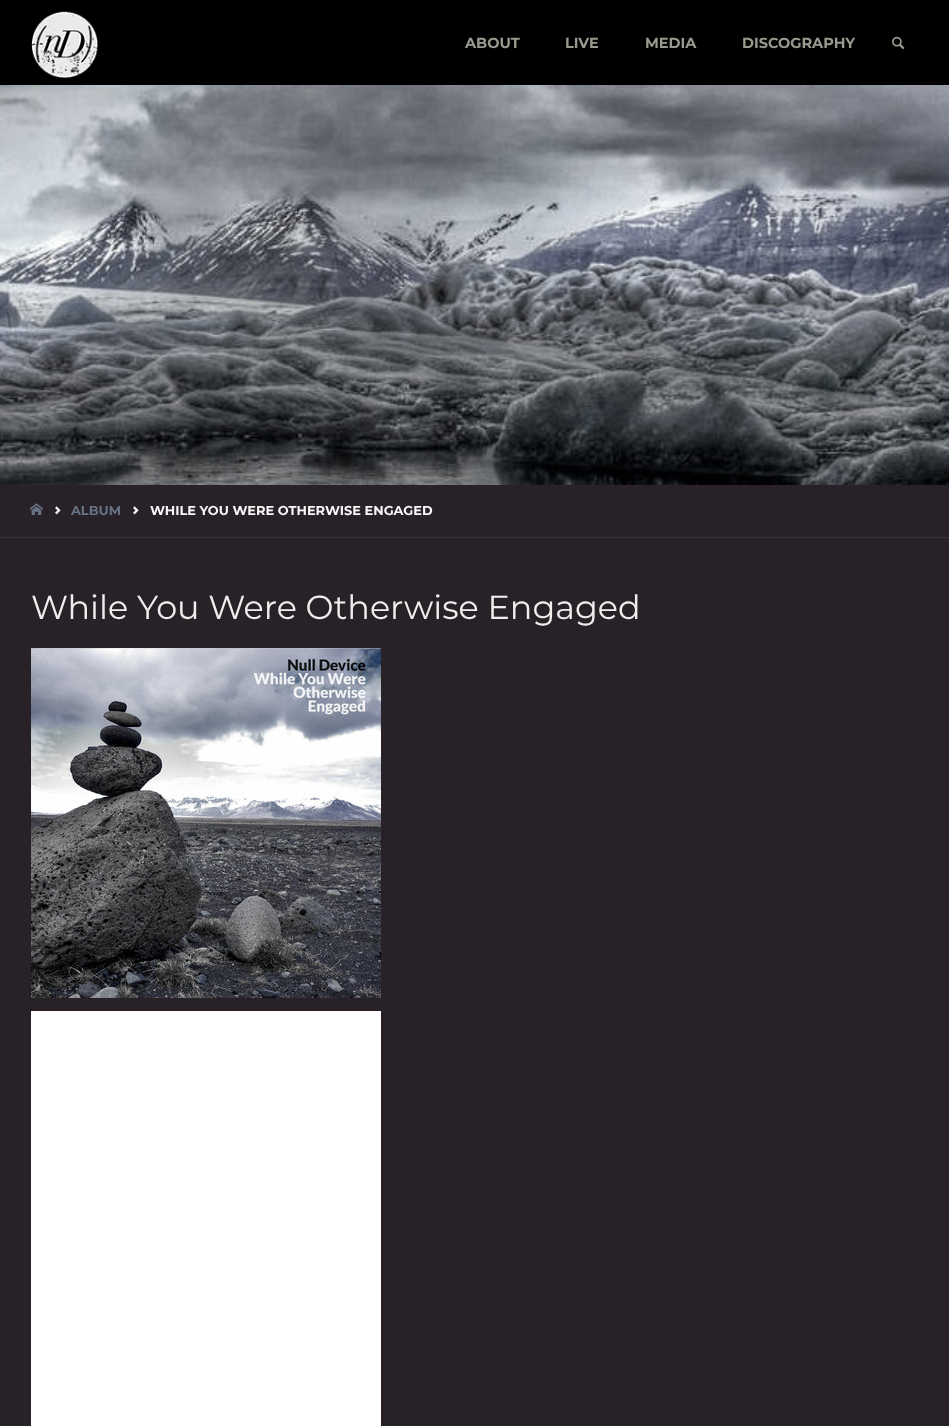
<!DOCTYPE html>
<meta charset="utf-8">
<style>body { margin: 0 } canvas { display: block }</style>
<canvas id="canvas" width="949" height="1426"></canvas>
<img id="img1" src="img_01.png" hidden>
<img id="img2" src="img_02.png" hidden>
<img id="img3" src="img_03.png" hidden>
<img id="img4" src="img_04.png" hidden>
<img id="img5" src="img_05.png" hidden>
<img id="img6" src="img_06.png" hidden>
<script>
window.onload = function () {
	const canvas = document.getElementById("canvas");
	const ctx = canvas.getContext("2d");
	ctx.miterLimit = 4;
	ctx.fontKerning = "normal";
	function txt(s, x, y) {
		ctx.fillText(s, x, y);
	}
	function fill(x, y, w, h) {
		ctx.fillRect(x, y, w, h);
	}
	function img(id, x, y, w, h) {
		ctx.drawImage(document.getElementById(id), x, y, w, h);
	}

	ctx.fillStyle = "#282228";
	fill(0, 0, 949, 1426);
	ctx.fillStyle = "#000000";
	fill(0, 0, 949, 85);
	img("img1", 31, 11, 67, 68);
	img("img2", 892, 36, 13, 14);
	img("img3", 0, 85, 949, 400);
	ctx.fillStyle = "#393339";
	fill(0, 537, 949, 1);
	img("img4", 30, 503, 13, 12);
	img("img5", 55, 506, 6, 9);
	img("img5", 133, 506, 6, 9);
	ctx.strokeStyle = "#252025";
	ctx.strokeRect(30.5, 568.5, 888, 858);
	img("img6", 31, 648, 350, 350);
	ctx.fillStyle = "#FFFFFF";
	fill(31, 1011, 350, 415);
	ctx.font = "bold 14.5px Montserrat";
	ctx.fillStyle = "#979B8D";
	txt("ABOUT", 465, 48);
	txt("LIVE", 565, 48);
	txt("MEDIA", 645, 48);
	txt("DISCOGRAPHY", 742, 48);
	ctx.font = "bold 12.9px Montserrat";
	ctx.fillStyle = "#677384";
	txt("ALBUM", 71, 515);
	ctx.fillStyle = "#F7F7F7";
	txt("WHILE YOU WERE OTHERWISE ENGAGED", 150, 515);
	ctx.font = "33.4px Montserrat";
	ctx.fillStyle = "#F1EDEC";
	txt("While You Were Otherwise Engaged", 31, 619);
};
</script>
